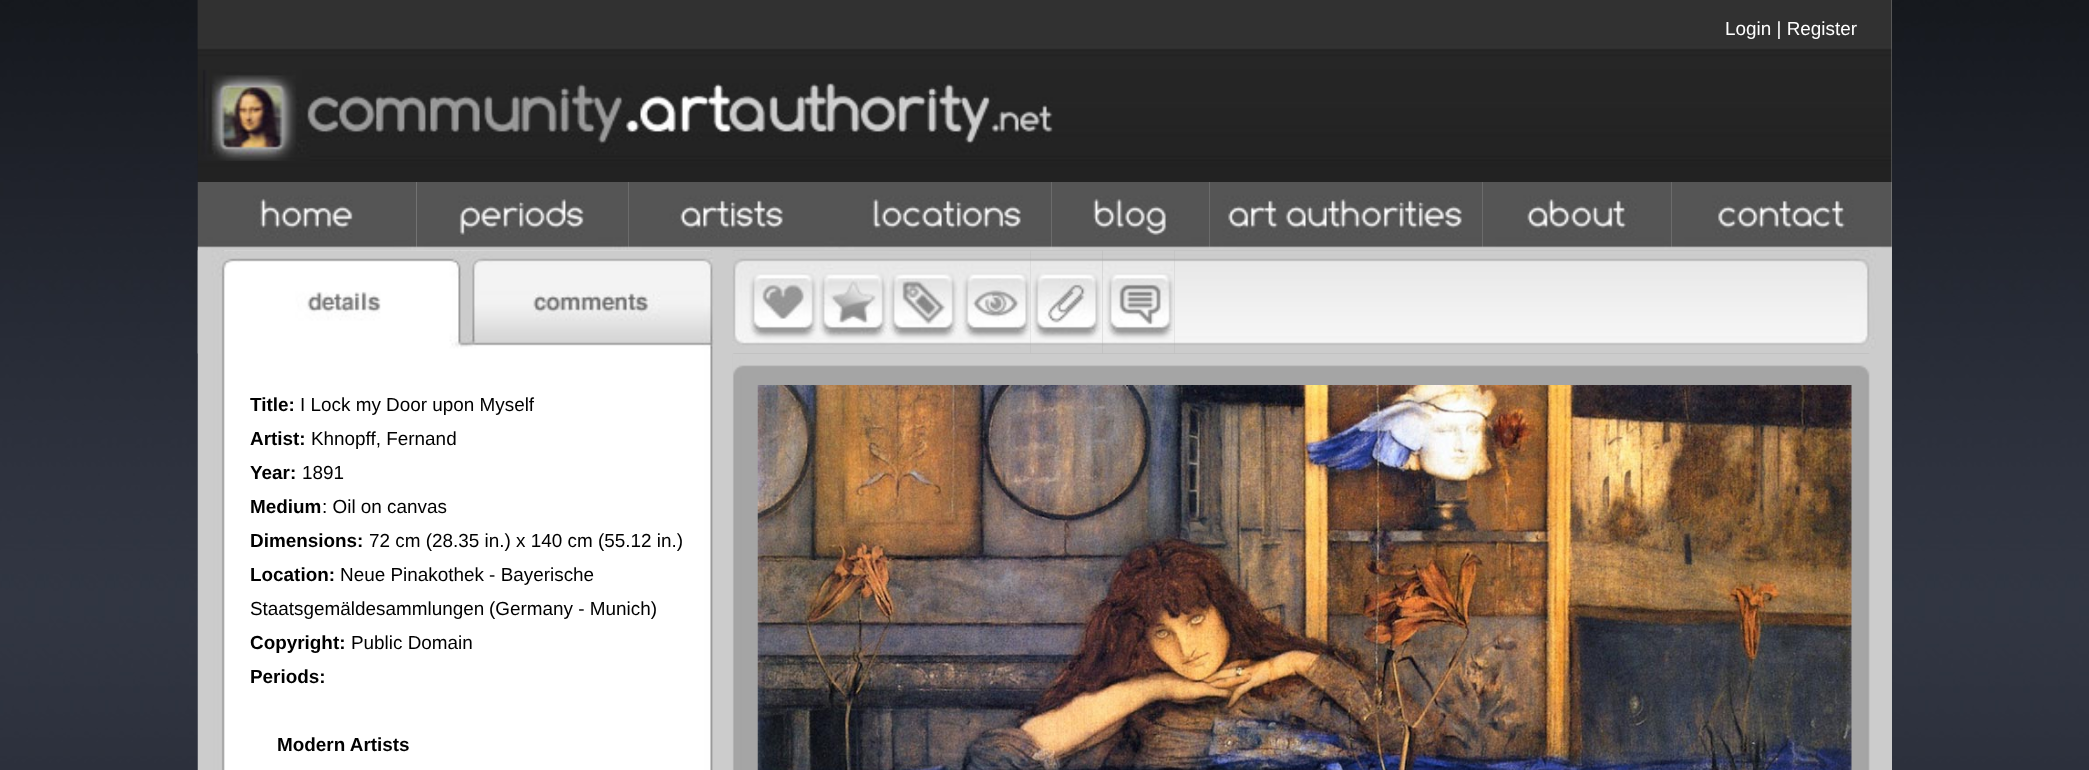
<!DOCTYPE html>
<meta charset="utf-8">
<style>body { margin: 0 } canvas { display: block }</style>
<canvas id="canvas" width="2089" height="770"></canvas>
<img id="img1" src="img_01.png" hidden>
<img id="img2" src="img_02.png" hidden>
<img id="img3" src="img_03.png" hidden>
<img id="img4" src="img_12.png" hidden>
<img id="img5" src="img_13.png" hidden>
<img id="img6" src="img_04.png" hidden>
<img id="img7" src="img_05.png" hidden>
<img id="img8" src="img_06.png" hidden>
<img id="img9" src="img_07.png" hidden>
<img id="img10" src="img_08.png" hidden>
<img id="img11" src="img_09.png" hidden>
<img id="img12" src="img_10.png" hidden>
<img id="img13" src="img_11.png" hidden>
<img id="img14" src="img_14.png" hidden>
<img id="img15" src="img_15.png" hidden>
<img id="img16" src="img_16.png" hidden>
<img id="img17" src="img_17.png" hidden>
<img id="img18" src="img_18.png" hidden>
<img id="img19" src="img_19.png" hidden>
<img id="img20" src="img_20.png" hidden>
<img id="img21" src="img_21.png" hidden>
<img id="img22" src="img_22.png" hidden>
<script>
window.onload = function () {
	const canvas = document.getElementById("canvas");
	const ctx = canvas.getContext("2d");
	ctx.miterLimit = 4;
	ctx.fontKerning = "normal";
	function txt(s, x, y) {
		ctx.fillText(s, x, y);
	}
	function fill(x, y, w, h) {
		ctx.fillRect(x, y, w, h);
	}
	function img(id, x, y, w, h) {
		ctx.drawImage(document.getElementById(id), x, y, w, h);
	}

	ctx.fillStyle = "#FFFFFF";
	fill(0, 0, 2089, 770);
	img("img1", 0, 0, 2089, 770);
	ctx.fillStyle = "#CCCCCC";
	fill(198, 0, 1694, 770);
	img("img2", 197, 0, 1695, 182);
	img("img3", 197, 0, 856, 161);
	img("img4", 197, 250, 1673, 520);
	img("img5", 197, 250, 517, 104);
	img("img6", 197, 182, 220, 69);
	img("img7", 416, 182, 213, 68);
	img("img8", 628, 182, 212, 68);
	img("img9", 840, 182, 212, 68);
	img("img10", 1051, 182, 159, 68);
	img("img11", 1209, 182, 274, 68);
	img("img12", 1482, 182, 190, 68);
	img("img13", 1671, 182, 221, 68);
	img("img14", 732, 250, 87, 104);
	img("img15", 819, 250, 70, 104);
	img("img16", 889, 250, 70, 104);
	img("img17", 959, 250, 72, 104);
	img("img18", 1030, 250, 73, 104);
	img("img19", 1102, 250, 73, 104);
	img("img20", 1174, 250, 702, 104);
	img("img21", 733, 353, 1137, 22);
	img("img22", 757, 385, 1095, 385);
	ctx.font = "18.9px Liberation Sans";
	ctx.fillStyle = "#FFFFFF";
	txt("Login | Register", 1725, 35);
	ctx.font = "bold 18.9px Liberation Sans";
	ctx.fillStyle = "#000000";
	txt("Title:", 250, 411);
	ctx.font = "18.9px Liberation Sans";
	txt("I Lock my Door upon Myself", 300, 411);
	ctx.font = "bold 18.9px Liberation Sans";
	txt("Artist:", 250, 445);
	ctx.font = "18.9px Liberation Sans";
	txt("Khnopff, Fernand", 311, 445);
	ctx.font = "bold 18.9px Liberation Sans";
	txt("Year:", 250, 479);
	ctx.font = "18.9px Liberation Sans";
	txt("1891", 302, 479);
	ctx.font = "bold 18.9px Liberation Sans";
	txt("Medium", 250, 513);
	ctx.font = "18.9px Liberation Sans";
	txt(": Oil on canvas", 322, 513);
	ctx.font = "bold 18.9px Liberation Sans";
	txt("Dimensions:", 250, 547);
	ctx.font = "18.9px Liberation Sans";
	txt("72 cm (28.35 in.) x 140 cm (55.12 in.)", 369, 547);
	ctx.font = "bold 18.9px Liberation Sans";
	txt("Location:", 250, 581);
	ctx.font = "18.9px Liberation Sans";
	txt("Neue Pinakothek - Bayerische", 340, 581);
	txt("Staatsgemäldesammlungen", 250, 615);
	txt("(Germany - Munich)", 489, 615);
	ctx.font = "bold 18.9px Liberation Sans";
	txt("Copyright:", 250, 649);
	ctx.font = "18.9px Liberation Sans";
	txt("Public Domain", 351, 649);
	ctx.font = "bold 18.9px Liberation Sans";
	txt("Periods:", 250, 683);
	txt("Modern Artists", 277, 751);
};
</script>
